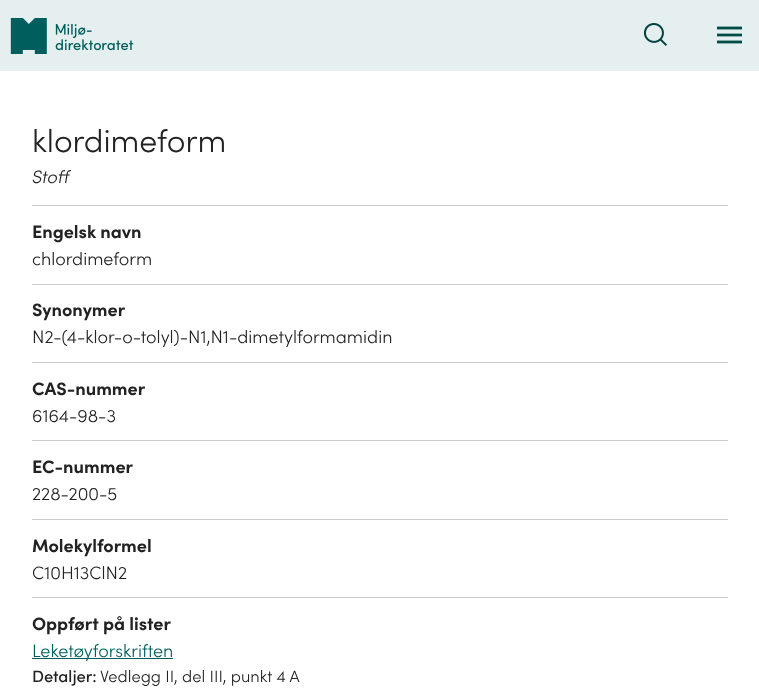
<!DOCTYPE html>
<meta charset="utf-8">
<style>body { margin: 0 } canvas { display: block }</style>
<canvas id="canvas" width="759" height="689"></canvas>
<img id="img1" src="img_01.png" hidden>
<img id="img2" src="img_02.png" hidden>
<img id="img3" src="img_03.png" hidden>
<script>
window.onload = function () {
	const canvas = document.getElementById("canvas");
	const ctx = canvas.getContext("2d");
	ctx.miterLimit = 4;
	ctx.fontKerning = "normal";
	function txt(s, x, y) {
		ctx.fillText(s, x, y);
	}
	function fill(x, y, w, h) {
		ctx.fillRect(x, y, w, h);
	}
	function img(id, x, y, w, h) {
		ctx.drawImage(document.getElementById(id), x, y, w, h);
	}

	ctx.fillStyle = "#FFFFFF";
	fill(0, 0, 759, 689);
	ctx.fillStyle = "#E6EFEF";
	fill(0, 0, 759, 71);
	img("img1", 10, 18, 124, 36);
	img("img2", 643, 23, 24, 23);
	img("img3", 717, 26, 25, 18);
	ctx.fillStyle = "#CCCCCC";
	fill(32, 205, 696, 1);
	fill(32, 284, 696, 1);
	fill(32, 362, 696, 1);
	fill(32, 440, 696, 1);
	fill(32, 519, 696, 1);
	fill(32, 597, 696, 1);
	ctx.fillStyle = "#005E5D";
	fill(32, 658, 141, 1);
	ctx.font = "300 32px Sofia";
	ctx.fillStyle = "#222222";
	txt("klordimeform", 32, 152);
	ctx.font = "300 18px 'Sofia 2'";
	txt("Stoff", 32, 183);
	ctx.font = "bold 18px Sofia";
	txt("Engelsk navn", 32, 238);
	ctx.font = "300 18px Sofia";
	txt("chlordimeform", 32, 265);
	ctx.font = "bold 18px Sofia";
	txt("Synonymer", 32, 316);
	ctx.font = "300 18px Sofia";
	txt("N2-(4-klor-o-tolyl)-N1,N1-dimetylformamidin", 32, 343);
	ctx.font = "bold 18px Sofia";
	txt("CAS-nummer", 32, 395);
	ctx.font = "300 18px Sofia";
	txt("6164-98-3", 32, 422);
	ctx.font = "bold 18px Sofia";
	txt("EC-nummer", 32, 473);
	ctx.font = "300 18px Sofia";
	txt("228-200-5", 32, 500);
	ctx.font = "bold 18px Sofia";
	txt("Molekylformel", 32, 552);
	ctx.font = "300 18px Sofia";
	txt("C10H13ClN2", 32, 579);
	ctx.font = "bold 18px Sofia";
	txt("Oppført på lister", 32, 630);
	ctx.font = "300 18px Sofia";
	ctx.fillStyle = "#005E5D";
	txt("Leketøyforskriften", 32, 657);
	ctx.font = "500 16.5px Sofia";
	ctx.fillStyle = "#222222";
	txt("Detaljer:", 32, 682);
	ctx.font = "300 16.5px Sofia";
	txt("Vedlegg II, del III, punkt 4 A", 100, 682);
};
</script>
